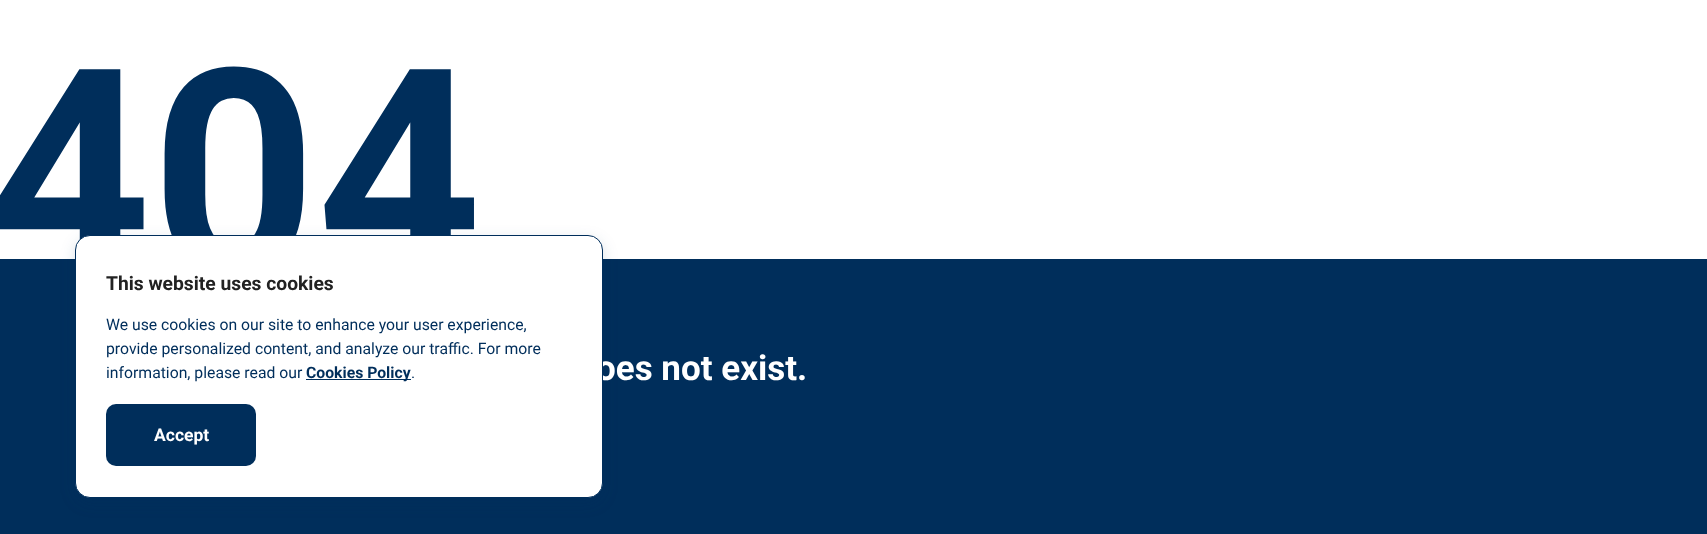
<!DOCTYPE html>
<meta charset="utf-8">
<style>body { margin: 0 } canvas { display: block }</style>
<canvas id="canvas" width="1707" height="534"></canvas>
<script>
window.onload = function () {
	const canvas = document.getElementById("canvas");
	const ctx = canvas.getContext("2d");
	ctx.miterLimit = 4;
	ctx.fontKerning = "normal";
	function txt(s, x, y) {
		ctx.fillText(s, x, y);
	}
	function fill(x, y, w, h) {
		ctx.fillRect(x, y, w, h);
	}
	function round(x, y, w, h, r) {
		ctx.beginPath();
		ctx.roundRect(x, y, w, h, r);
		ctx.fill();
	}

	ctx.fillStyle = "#FFFFFF";
	fill(0, 0, 1707, 534);
	ctx.fillStyle = "#002E5B";
	fill(0, 259, 1707, 275);
	ctx.fillStyle = "rgba(0, 46, 91, 0.15)";
	ctx.filter = "blur(7.5px)";
	ctx.beginPath();
	ctx.roundRect(75, 240, 528, 263, 15);
	ctx.fill();
	ctx.filter = "none";
	ctx.font = "bold 288px Roboto";
	ctx.fillStyle = "#002E5B";
	txt("404", -14, 274);
	ctx.font = "bold 35px Roboto";
	ctx.fillStyle = "#FFFFFF";
	txt("oes not exist.", 596, 380);
	ctx.beginPath();
	ctx.roundRect(75.5, 235.5, 527, 262, 14.5);
	ctx.fill();
	ctx.strokeStyle = "#002E5B";
	ctx.stroke();
	ctx.font = "bold 19.25px Roboto";
	ctx.fillStyle = "#222222";
	txt("This website uses cookies", 106, 290);
	ctx.font = "15.75px Roboto";
	ctx.fillStyle = "#002E5B";
	txt("We use cookies on our site to enhance your user experience,", 106, 330);
	txt("provide personalized content, and analyze our traffic. For more", 106, 354);
	txt("information, please read our", 106, 378);
	fill(306, 379, 105, 1);
	ctx.font = "bold 15.75px Roboto";
	txt("Cookies Policy", 306, 378);
	ctx.font = "15.75px Roboto";
	txt(".", 411, 378);
	round(106, 404, 150, 62, 10);
	ctx.font = "bold 17.5px Roboto";
	ctx.fillStyle = "#FFFFFF";
	txt("Accept", 154, 441);
};
</script>
